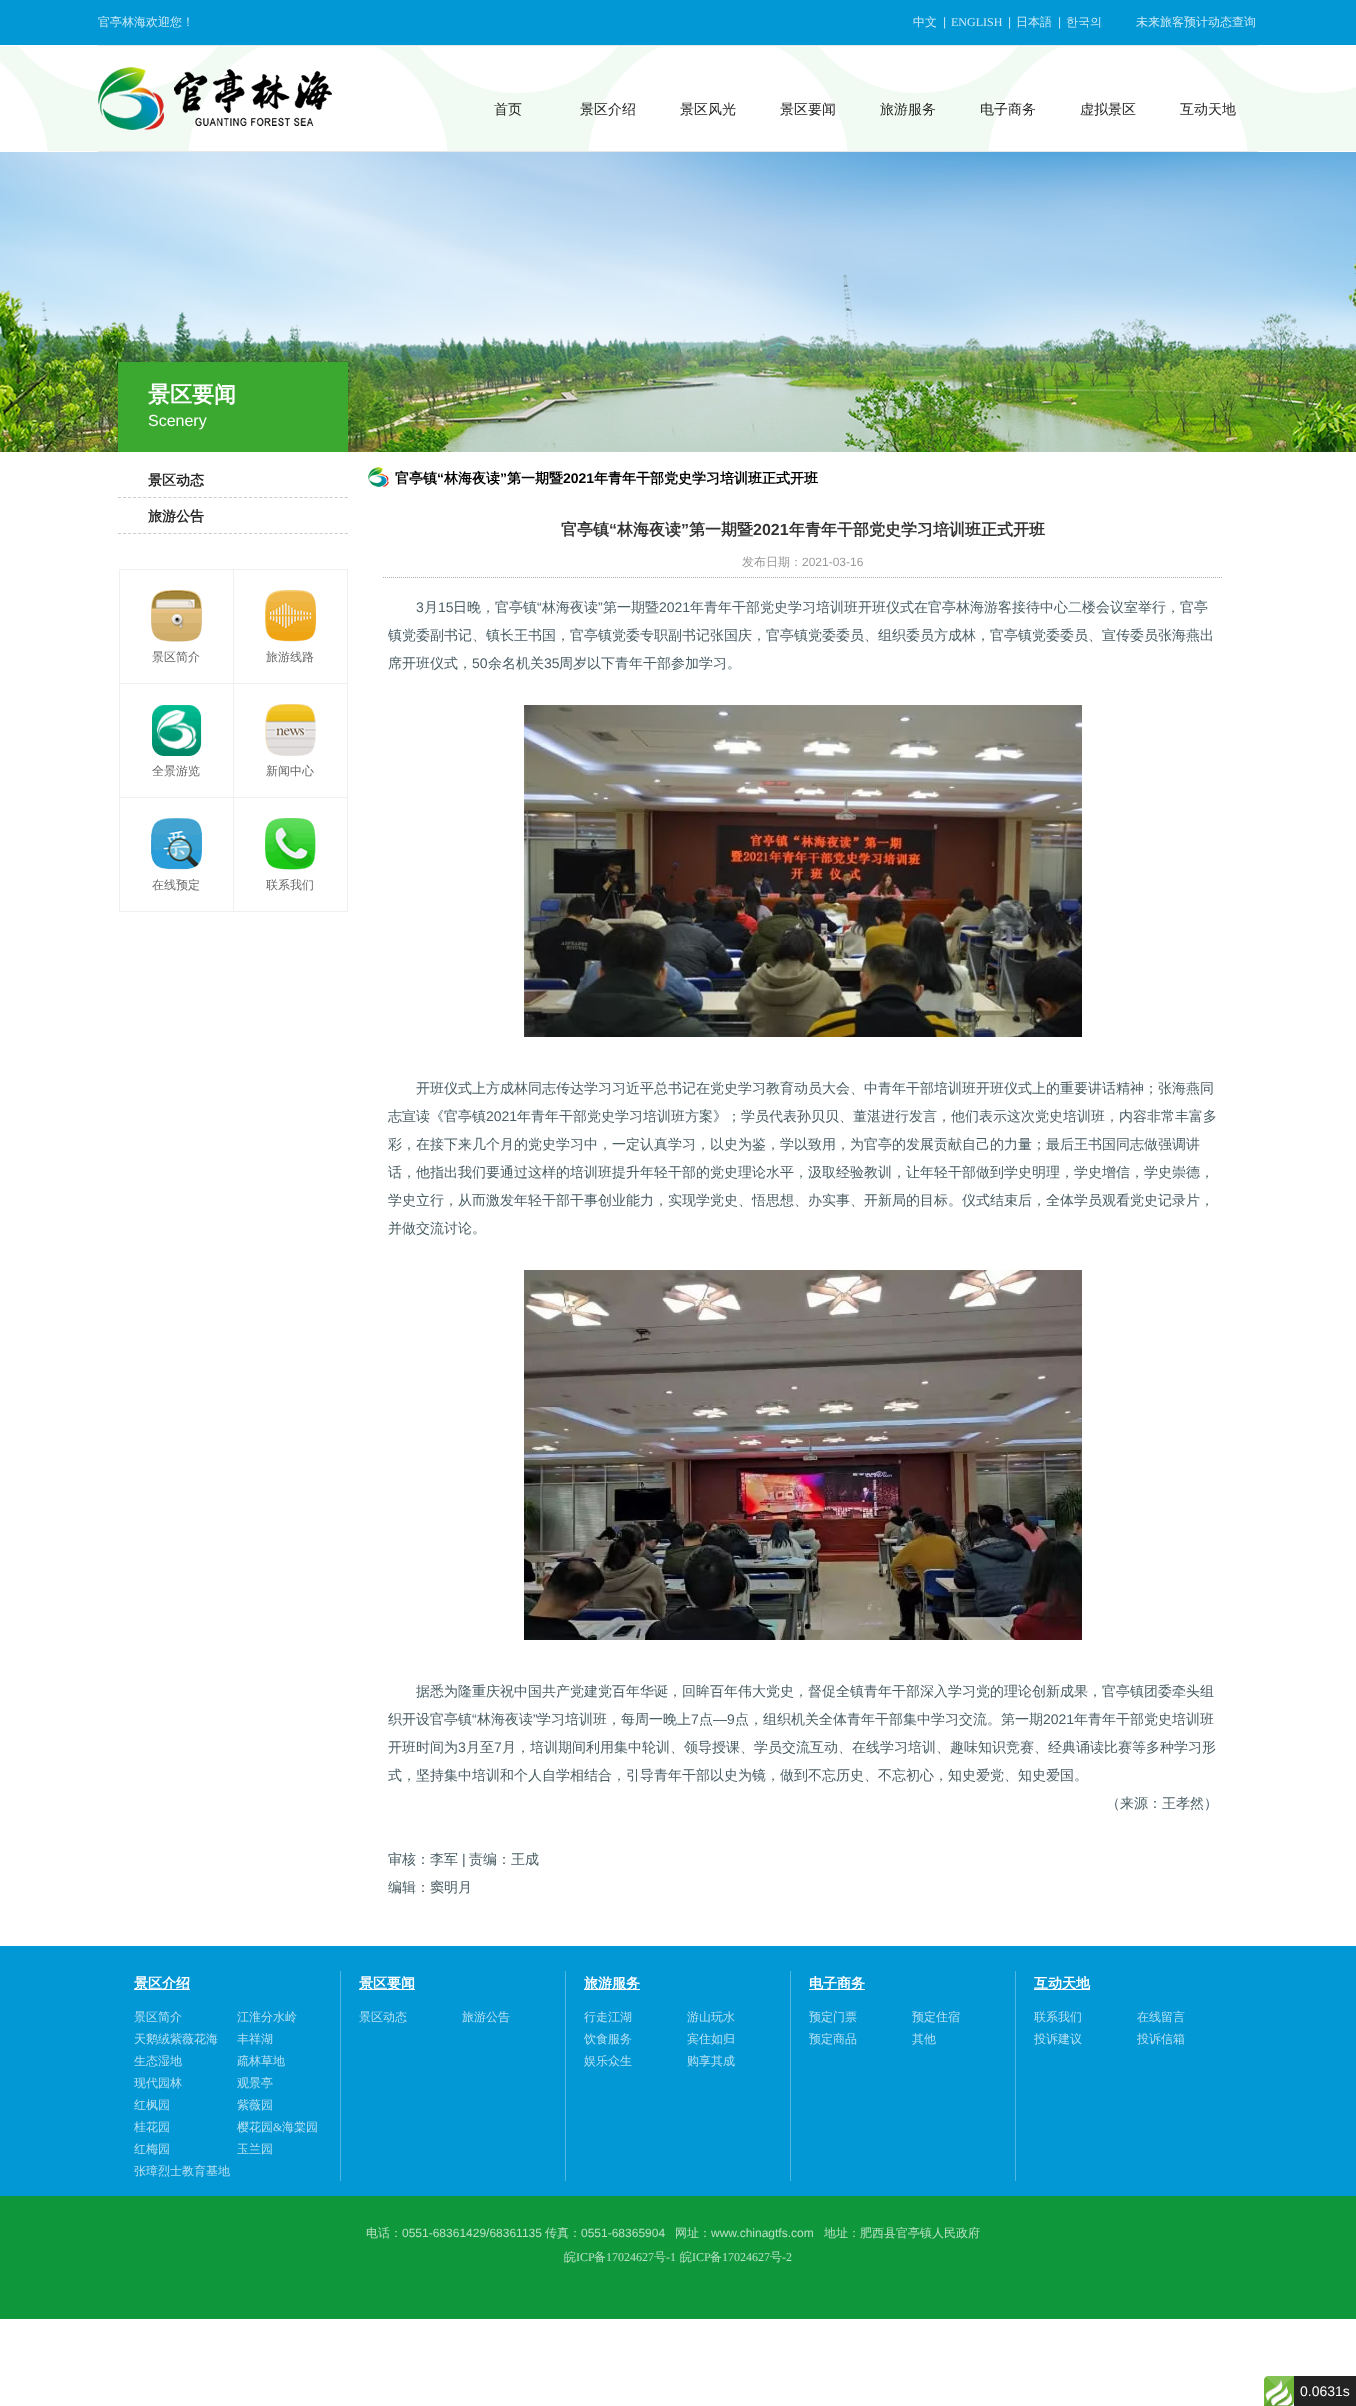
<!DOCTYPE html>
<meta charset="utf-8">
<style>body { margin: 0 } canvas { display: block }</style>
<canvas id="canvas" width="1356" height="2406"></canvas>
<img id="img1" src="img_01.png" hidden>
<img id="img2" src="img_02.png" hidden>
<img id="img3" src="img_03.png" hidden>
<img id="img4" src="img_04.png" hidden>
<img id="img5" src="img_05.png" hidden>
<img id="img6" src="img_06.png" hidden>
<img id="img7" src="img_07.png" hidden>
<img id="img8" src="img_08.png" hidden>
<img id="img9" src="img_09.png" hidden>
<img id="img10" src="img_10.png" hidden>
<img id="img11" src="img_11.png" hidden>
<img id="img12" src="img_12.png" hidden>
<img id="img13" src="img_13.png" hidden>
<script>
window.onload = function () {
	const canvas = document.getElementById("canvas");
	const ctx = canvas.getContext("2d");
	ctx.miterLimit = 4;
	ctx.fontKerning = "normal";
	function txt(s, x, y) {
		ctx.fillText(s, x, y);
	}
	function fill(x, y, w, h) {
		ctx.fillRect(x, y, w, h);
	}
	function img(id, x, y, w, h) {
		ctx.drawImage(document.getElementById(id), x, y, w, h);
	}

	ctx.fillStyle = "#FFFFFF";
	fill(0, 0, 1356, 2406);
	ctx.fillStyle = "#0298D6";
	fill(0, 0, 1356, 45);
	img("img1", 0, 46, 1356, 105);
	ctx.fillStyle = "#E7E8EA";
	fill(98, 45, 1160, 1);
	fill(98, 151, 1160, 1);
	img("img2", 98, 67, 234, 63);
	img("img3", 0, 152, 1356, 300);
	ctx.fillStyle = "#3BA830";
	fill(118, 362, 230, 90);
	ctx.beginPath();
	ctx.moveTo(118, 497.5);
	ctx.lineTo(348, 497.5);
	ctx.strokeStyle = "#CCCCCC";
	ctx.setLineDash([3, 2.04]);
	ctx.stroke();
	ctx.beginPath();
	ctx.moveTo(118, 533.5);
	ctx.lineTo(348, 533.5);
	ctx.stroke();
	ctx.fillStyle = "#F0F0F0";
	fill(119, 569, 229, 1);
	fill(119, 569, 1, 343);
	fill(233, 570, 1, 342);
	fill(120, 683, 114, 1);
	img("img4", 151, 590, 51, 52);
	fill(347, 570, 1, 342);
	fill(234, 683, 114, 1);
	img("img5", 265, 590, 51, 52);
	fill(120, 797, 228, 1);
	img("img6", 152, 705, 50, 51);
	img("img7", 265, 704, 51, 52);
	fill(120, 911, 228, 1);
	img("img8", 151, 818, 51, 52);
	img("img9", 265, 818, 51, 52);
	img("img10", 368, 467, 21, 20);
	ctx.beginPath();
	ctx.moveTo(383, 577.5);
	ctx.lineTo(1223, 577.5);
	ctx.strokeStyle = "#AFAFAF";
	ctx.setLineDash([1, 1]);
	ctx.stroke();
	img("img11", 524, 705, 558, 332);
	img("img12", 524, 1270, 558, 370);
	ctx.fillStyle = "#0298D6";
	fill(0, 1946, 1356, 250);
	ctx.fillStyle = "#4EB7E2";
	fill(340, 1971, 1, 210);
	ctx.fillStyle = "#FFFFFF";
	fill(134, 1989, 56, 1);
	ctx.fillStyle = "#4EB7E2";
	fill(565, 1971, 1, 210);
	ctx.fillStyle = "#FFFFFF";
	fill(359, 1989, 56, 1);
	ctx.fillStyle = "#4EB7E2";
	fill(790, 1971, 1, 210);
	ctx.fillStyle = "#FFFFFF";
	fill(584, 1989, 56, 1);
	ctx.fillStyle = "#4EB7E2";
	fill(1015, 1971, 1, 210);
	ctx.fillStyle = "#FFFFFF";
	fill(809, 1989, 56, 1);
	fill(1034, 1989, 56, 1);
	ctx.fillStyle = "#0F973B";
	fill(0, 2196, 1356, 123);
	img("img13", 1264, 2376, 30, 30);
	ctx.fillStyle = "#232323";
	fill(1294, 2376, 62, 30);
	ctx.font = "500 12px WenQuanYi Zen Hei";
	ctx.fillStyle = "#CCEAF7";
	txt("官亭林海欢迎您！", 98, 26);
	txt("中文", 913, 26);
	ctx.font = "12px Liberation Sans";
	txt("|", 943, 26);
	ctx.font = "12px Liberation Serif";
	txt("ENGLISH", 951, 26);
	ctx.font = "12px Liberation Sans";
	txt("|", 1008, 26);
	ctx.font = "500 12px WenQuanYi Zen Hei";
	txt("日本語", 1016, 26);
	ctx.font = "12px Liberation Sans";
	txt("|", 1058, 26);
	ctx.font = "500 12px WenQuanYi Zen Hei";
	txt("한국의", 1066, 26);
	txt("未来旅客预计动态查询", 1136, 26);
	ctx.font = "500 14px WenQuanYi Zen Hei";
	ctx.fillStyle = "#262626";
	txt("首页", 494, 114);
	txt("景区介绍", 580, 114);
	txt("景区风光", 680, 114);
	txt("景区要闻", 780, 114);
	txt("旅游服务", 880, 114);
	txt("电子商务", 980, 114);
	txt("虚拟景区", 1080, 114);
	txt("互动天地", 1180, 114);
	ctx.font = "bold 22px WenQuanYi Zen Hei";
	ctx.fillStyle = "#FFFFFF";
	txt("景区要闻", 148, 402);
	ctx.font = "16px Liberation Sans";
	txt("Scenery", 148, 426);
	ctx.font = "bold 14px WenQuanYi Zen Hei";
	ctx.fillStyle = "#262626";
	txt("景区动态", 148, 485);
	txt("旅游公告", 148, 521);
	ctx.font = "500 12px WenQuanYi Zen Hei";
	ctx.fillStyle = "#666666";
	txt("景区简介", 152, 661);
	txt("旅游线路", 266, 661);
	txt("全景游览", 152, 775);
	txt("新闻中心", 266, 775);
	txt("在线预定", 152, 889);
	txt("联系我们", 266, 889);
	ctx.font = "bold 14px WenQuanYi Zen Hei";
	ctx.fillStyle = "#000000";
	txt("官亭镇", 395, 483);
	ctx.font = "bold 14px Liberation Sans";
	txt("“", 437, 483);
	ctx.font = "bold 14px WenQuanYi Zen Hei";
	txt("林海夜读", 444, 483);
	ctx.font = "bold 14px Liberation Sans";
	txt("”", 500, 483);
	ctx.font = "bold 14px WenQuanYi Zen Hei";
	txt("第一期暨", 507, 483);
	ctx.font = "bold 14px Liberation Sans";
	txt("2021", 563, 483);
	ctx.font = "bold 14px WenQuanYi Zen Hei";
	txt("年青年干部党史学习培训班正式开班", 594, 483);
	ctx.font = "bold 16px WenQuanYi Zen Hei";
	ctx.fillStyle = "#333333";
	txt("官亭镇", 561, 535);
	ctx.font = "bold 16px Liberation Sans";
	txt("“", 609, 535);
	ctx.font = "bold 16px WenQuanYi Zen Hei";
	txt("林海夜读", 617, 535);
	ctx.font = "bold 16px Liberation Sans";
	txt("”", 681, 535);
	ctx.font = "bold 16px WenQuanYi Zen Hei";
	txt("第一期暨", 689, 535);
	ctx.font = "bold 16px Liberation Sans";
	txt("2021", 753, 535);
	ctx.font = "bold 16px WenQuanYi Zen Hei";
	txt("年青年干部党史学习培训班正式开班", 789, 535);
	ctx.font = "500 12px WenQuanYi Zen Hei";
	ctx.fillStyle = "#999999";
	txt("发布日期：", 742, 566);
	ctx.font = "12px Liberation Sans";
	txt("2021-03-16", 802, 566);
	ctx.font = "14px Liberation Sans";
	ctx.fillStyle = "#495D64";
	txt("3", 416, 612);
	ctx.font = "500 14px WenQuanYi Zen Hei";
	txt("月", 424, 612);
	ctx.font = "14px Liberation Sans";
	txt("15", 438, 612);
	ctx.font = "500 14px WenQuanYi Zen Hei";
	txt("日晚，官亭镇", 453, 612);
	ctx.font = "14px Liberation Sans";
	txt("“", 537, 612);
	ctx.font = "500 14px WenQuanYi Zen Hei";
	txt("林海夜读", 542, 612);
	ctx.font = "14px Liberation Sans";
	txt("”", 598, 612);
	ctx.font = "500 14px WenQuanYi Zen Hei";
	txt("第一期暨", 603, 612);
	ctx.font = "14px Liberation Sans";
	txt("2021", 659, 612);
	ctx.font = "500 14px WenQuanYi Zen Hei";
	txt("年青年干部党史学习培训班开班仪式在官亭林海游客接待中心二楼会议室举行，官亭", 690, 612);
	txt("镇党委副书记、镇长王书国，官亭镇党委专职副书记张国庆，官亭镇党委委员、组织委员方成林，官亭镇党委委员、宣传委员张海燕出", 388, 640);
	txt("席开班仪式，", 388, 668);
	ctx.font = "14px Liberation Sans";
	txt("50", 472, 668);
	ctx.font = "500 14px WenQuanYi Zen Hei";
	txt("余名机关", 488, 668);
	ctx.font = "14px Liberation Sans";
	txt("35", 544, 668);
	ctx.font = "500 14px WenQuanYi Zen Hei";
	txt("周岁以下青年干部参加学习。", 559, 668);
	txt("开班仪式上方成林同志传达学习习近平总书记在党史学习教育动员大会、中青年干部培训班开班仪式上的重要讲话精神；张海燕同", 416, 1093);
	txt("志宣读《官亭镇", 388, 1121);
	ctx.font = "14px Liberation Sans";
	txt("2021", 486, 1121);
	ctx.font = "500 14px WenQuanYi Zen Hei";
	txt("年青年干部党史学习培训班方案》；学员代表孙贝贝、董湛进行发言，他们表示这次党史培训班，内容非常丰富多", 517, 1121);
	txt("彩，在接下来几个月的党史学习中，一定认真学习，以史为鉴，学以致用，为官亭的发展贡献自己的力量；最后王书国同志做强调讲", 388, 1149);
	txt("话，他指出我们要通过这样的培训班提升年轻干部的党史理论水平，汲取经验教训，让年轻干部做到学史明理，学史增信，学史崇德，", 388, 1177);
	txt("学史立行，从而激发年轻干部干事创业能力，实现学党史、悟思想、办实事、开新局的目标。仪式结束后，全体学员观看党史记录片，", 388, 1205);
	txt("并做交流讨论。", 388, 1233);
	txt("据悉为隆重庆祝中国共产党建党百年华诞，回眸百年伟大党史，督促全镇青年干部深入学习党的理论创新成果，官亭镇团委牵头组", 416, 1696);
	txt("织开设官亭镇", 388, 1724);
	ctx.font = "14px Liberation Sans";
	txt("“", 472, 1724);
	ctx.font = "500 14px WenQuanYi Zen Hei";
	txt("林海夜读", 477, 1724);
	ctx.font = "14px Liberation Sans";
	txt("”", 533, 1724);
	ctx.font = "500 14px WenQuanYi Zen Hei";
	txt("学习培训班，每周一晚上", 537, 1724);
	ctx.font = "14px Liberation Sans";
	txt("7", 691, 1724);
	ctx.font = "500 14px WenQuanYi Zen Hei";
	txt("点", 699, 1724);
	ctx.font = "14px Liberation Sans";
	txt("—9", 713, 1724);
	ctx.font = "500 14px WenQuanYi Zen Hei";
	txt("点，组织机关全体青年干部集中学习交流。第一期", 735, 1724);
	ctx.font = "14px Liberation Sans";
	txt("2021", 1043, 1724);
	ctx.font = "500 14px WenQuanYi Zen Hei";
	txt("年青年干部党史培训班", 1074, 1724);
	txt("开班时间为", 388, 1752);
	ctx.font = "14px Liberation Sans";
	txt("3", 458, 1752);
	ctx.font = "500 14px WenQuanYi Zen Hei";
	txt("月至", 466, 1752);
	ctx.font = "14px Liberation Sans";
	txt("7", 494, 1752);
	ctx.font = "500 14px WenQuanYi Zen Hei";
	txt("月，培训期间利用集中轮训、领导授课、学员交流互动、在线学习培训、趣味知识竞赛、经典诵读比赛等多种学习形", 502, 1752);
	txt("式，坚持集中培训和个人自学相结合，引导青年干部以史为镜，做到不忘历史、不忘初心，知史爱党、知史爱国。", 388, 1780);
	txt("（来源：王孝然）", 1106, 1808);
	txt("审核：李军", 388, 1864);
	ctx.font = "14px Liberation Sans";
	txt("|", 462, 1864);
	ctx.font = "500 14px WenQuanYi Zen Hei";
	txt("责编：王成", 469, 1864);
	txt("编辑：窦明月", 388, 1892);
	ctx.font = "bold 14px WenQuanYi Zen Hei";
	ctx.fillStyle = "#FFFFFF";
	txt("景区介绍", 134, 1988);
	ctx.font = "500 12px WenQuanYi Zen Hei";
	ctx.fillStyle = "#B4E0F3";
	txt("景区简介", 134, 2021);
	txt("江淮分水岭", 237, 2021);
	txt("天鹅绒紫薇花海", 134, 2043);
	txt("丰祥湖", 237, 2043);
	txt("生态湿地", 134, 2065);
	txt("疏林草地", 237, 2065);
	ctx.save();
	ctx.beginPath();
	ctx.rect(134, 2072, 100, 22);
	ctx.clip();
	txt("现代园林", 134, 2087);
	ctx.restore();
	txt("观景亭", 237, 2087);
	ctx.save();
	ctx.beginPath();
	ctx.rect(134, 2094, 100, 22);
	ctx.clip();
	txt("红枫园", 134, 2109);
	ctx.restore();
	txt("紫薇园", 237, 2109);
	ctx.save();
	ctx.beginPath();
	ctx.rect(134, 2116, 100, 22);
	ctx.clip();
	txt("桂花园", 134, 2131);
	ctx.restore();
	txt("樱花园", 237, 2131);
	ctx.font = "12px Liberation Serif";
	txt("&", 273, 2131);
	ctx.font = "500 12px WenQuanYi Zen Hei";
	txt("海棠园", 282, 2131);
	ctx.save();
	ctx.beginPath();
	ctx.rect(134, 2138, 100, 22);
	ctx.clip();
	txt("红梅园", 134, 2153);
	ctx.restore();
	txt("玉兰园", 237, 2153);
	txt("张璋烈士教育基地", 134, 2175);
	ctx.font = "bold 14px WenQuanYi Zen Hei";
	ctx.fillStyle = "#FFFFFF";
	txt("景区要闻", 359, 1988);
	ctx.font = "500 12px WenQuanYi Zen Hei";
	ctx.fillStyle = "#B4E0F3";
	txt("景区动态", 359, 2021);
	txt("旅游公告", 462, 2021);
	ctx.font = "bold 14px WenQuanYi Zen Hei";
	ctx.fillStyle = "#FFFFFF";
	txt("旅游服务", 584, 1988);
	ctx.font = "500 12px WenQuanYi Zen Hei";
	ctx.fillStyle = "#B4E0F3";
	txt("行走江湖", 584, 2021);
	txt("游山玩水", 687, 2021);
	txt("饮食服务", 584, 2043);
	txt("宾住如归", 687, 2043);
	txt("娱乐众生", 584, 2065);
	txt("购享其成", 687, 2065);
	ctx.font = "bold 14px WenQuanYi Zen Hei";
	ctx.fillStyle = "#FFFFFF";
	txt("电子商务", 809, 1988);
	ctx.font = "500 12px WenQuanYi Zen Hei";
	ctx.fillStyle = "#B4E0F3";
	txt("预定门票", 809, 2021);
	txt("预定住宿", 912, 2021);
	txt("预定商品", 809, 2043);
	txt("其他", 912, 2043);
	ctx.font = "bold 14px WenQuanYi Zen Hei";
	ctx.fillStyle = "#FFFFFF";
	txt("互动天地", 1034, 1988);
	ctx.save();
	ctx.beginPath();
	ctx.rect(1034, 2006, 100, 22);
	ctx.clip();
	ctx.font = "500 12px WenQuanYi Zen Hei";
	ctx.fillStyle = "#B4E0F3";
	txt("联系我们", 1034, 2021);
	ctx.restore();
	ctx.font = "500 12px WenQuanYi Zen Hei";
	ctx.fillStyle = "#B4E0F3";
	txt("在线留言", 1137, 2021);
	ctx.save();
	ctx.beginPath();
	ctx.rect(1034, 2028, 100, 22);
	ctx.clip();
	txt("投诉建议", 1034, 2043);
	ctx.restore();
	ctx.save();
	ctx.beginPath();
	ctx.rect(1137, 2028, 100, 22);
	ctx.clip();
	txt("投诉信箱", 1137, 2043);
	ctx.restore();
	ctx.fillStyle = "#B7E0C5";
	txt("电话：", 366, 2237);
	ctx.font = "12px Liberation Sans";
	txt("0551-68361429/68361135", 402, 2237);
	ctx.font = "500 12px WenQuanYi Zen Hei";
	txt("传真：", 545, 2237);
	ctx.font = "12px Liberation Sans";
	txt("0551-68365904", 581, 2237);
	ctx.font = "500 12px WenQuanYi Zen Hei";
	txt("网址：", 675, 2237);
	ctx.font = "12px Liberation Sans";
	txt("www.chinagtfs.com", 711, 2237);
	ctx.font = "500 12px WenQuanYi Zen Hei";
	txt("地址：肥西县官亭镇人民政府", 824, 2237);
	txt("皖", 564, 2261);
	ctx.font = "12px Liberation Serif";
	txt("ICP", 576, 2261);
	ctx.font = "500 12px WenQuanYi Zen Hei";
	txt("备", 594, 2261);
	ctx.font = "12px Liberation Serif";
	txt("17024627", 606, 2261);
	ctx.font = "500 12px WenQuanYi Zen Hei";
	txt("号", 654, 2261);
	ctx.font = "12px Liberation Serif";
	txt("-1", 666, 2261);
	ctx.font = "500 12px WenQuanYi Zen Hei";
	txt("皖", 680, 2261);
	ctx.font = "12px Liberation Serif";
	txt("ICP", 692, 2261);
	ctx.font = "500 12px WenQuanYi Zen Hei";
	txt("备", 710, 2261);
	ctx.font = "12px Liberation Serif";
	txt("17024627", 722, 2261);
	ctx.font = "500 12px WenQuanYi Zen Hei";
	txt("号", 770, 2261);
	ctx.font = "12px Liberation Serif";
	txt("-2", 782, 2261);
	ctx.font = "14px Liberation Sans";
	ctx.fillStyle = "#FFFFFF";
	txt("0.0631s", 1300, 2396);
};
</script>
